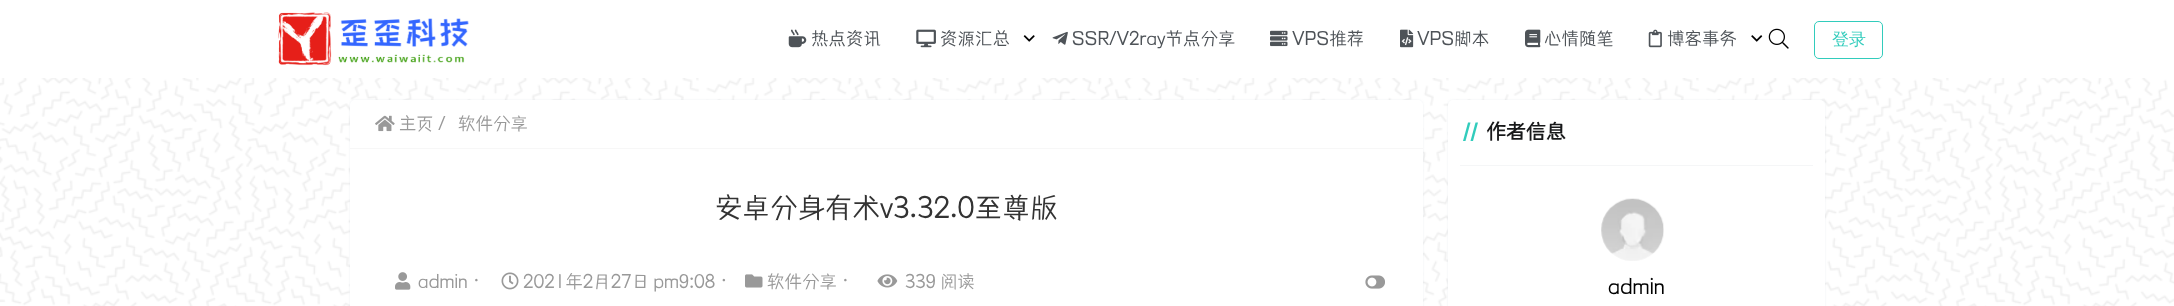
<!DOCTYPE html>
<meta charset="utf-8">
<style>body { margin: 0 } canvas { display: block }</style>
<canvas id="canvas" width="2174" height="306"></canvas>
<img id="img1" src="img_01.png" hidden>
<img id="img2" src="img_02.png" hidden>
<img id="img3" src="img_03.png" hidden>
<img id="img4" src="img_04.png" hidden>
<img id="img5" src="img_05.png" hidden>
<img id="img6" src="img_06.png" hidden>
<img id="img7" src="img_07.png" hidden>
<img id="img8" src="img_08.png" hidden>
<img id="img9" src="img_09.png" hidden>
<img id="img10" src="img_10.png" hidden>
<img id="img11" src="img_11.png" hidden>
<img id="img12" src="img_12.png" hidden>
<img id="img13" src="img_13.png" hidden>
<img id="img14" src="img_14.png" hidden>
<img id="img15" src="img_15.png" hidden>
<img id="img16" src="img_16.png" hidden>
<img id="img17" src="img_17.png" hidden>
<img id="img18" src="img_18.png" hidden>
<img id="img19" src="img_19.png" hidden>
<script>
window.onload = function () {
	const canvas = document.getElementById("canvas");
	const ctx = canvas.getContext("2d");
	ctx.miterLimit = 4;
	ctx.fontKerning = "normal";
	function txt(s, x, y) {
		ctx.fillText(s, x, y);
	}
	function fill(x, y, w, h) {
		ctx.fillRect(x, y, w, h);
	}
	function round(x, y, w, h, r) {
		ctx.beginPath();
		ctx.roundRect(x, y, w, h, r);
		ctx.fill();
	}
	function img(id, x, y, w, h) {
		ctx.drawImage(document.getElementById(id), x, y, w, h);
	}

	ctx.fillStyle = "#FFFFFF";
	fill(0, 0, 2174, 306);
	img("img1", 0, 78, 2174, 228);
	img("img2", 278, 12, 191, 54);
	img("img3", 788, 29, 19, 19);
	img("img4", 916, 29, 20, 19);
	img("img5", 1023, 35, 12, 7);
	img("img6", 1052, 31, 16, 14);
	img("img7", 1270, 30, 18, 17);
	img("img8", 1400, 29, 14, 19);
	img("img9", 1525, 29, 16, 19);
	img("img10", 1648, 29, 14, 19);
	img("img11", 1751, 35, 12, 7);
	img("img12", 1768, 28, 21, 21);
	ctx.beginPath();
	ctx.roundRect(1814.5, 21.5, 68, 37, 4.5);
	ctx.strokeStyle = "#32CCBC";
	ctx.stroke();
	ctx.fillStyle = "rgba(98, 124, 153, 0.1)";
	ctx.filter = "blur(1px)";
	ctx.beginPath();
	ctx.roundRect(350, 100, 1073, 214, 5);
	ctx.fill();
	ctx.filter = "none";
	ctx.fillStyle = "#FFFFFF";
	round(350, 100, 1073, 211, 5);
	ctx.fillStyle = "#F7F7F7";
	fill(350, 148, 1073, 1);
	img("img13", 375, 115, 20, 17);
	img("img14", 395, 272, 16, 18);
	img("img15", 501, 272, 18, 18);
	img("img16", 745, 274, 18, 14);
	img("img17", 877, 274, 21, 14);
	img("img18", 1365, 275, 20, 14);
	ctx.fillStyle = "rgba(98, 124, 153, 0.1)";
	ctx.filter = "blur(1px)";
	ctx.beginPath();
	ctx.roundRect(1448, 100, 377, 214, 5);
	ctx.fill();
	ctx.filter = "none";
	ctx.fillStyle = "#FFFFFF";
	round(1448, 100, 377, 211, 5);
	ctx.fillStyle = "#F5F6F7";
	fill(1460, 165, 353, 1);
	ctx.fillStyle = "#32CCBC";
	ctx.beginPath();
	ctx.moveTo(1468, 122.5);
	ctx.lineTo(1470.5, 122.5);
	ctx.lineTo(1465.5, 141);
	ctx.lineTo(1463, 141);
	ctx.closePath();
	ctx.fill();
	ctx.beginPath();
	ctx.moveTo(1475.5, 122.5);
	ctx.lineTo(1478, 122.5);
	ctx.lineTo(1473, 141);
	ctx.lineTo(1470.5, 141);
	ctx.closePath();
	ctx.fill();
	img("img19", 1601, 198, 63, 63);
	ctx.font = "17.5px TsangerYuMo";
	ctx.fillStyle = "#4E5358";
	txt("热点资讯", 811, 45);
	txt("资源汇总", 940, 45);
	txt("SSR/V2ray节点分享", 1072, 45);
	txt("VPS推荐", 1292, 45);
	txt("VPS脚本", 1417, 45);
	txt("心情随笔", 1544, 45);
	txt("博客事务", 1667, 45);
	ctx.font = "500 17px WenQuanYi Zen Hei";
	ctx.fillStyle = "#32CCBC";
	txt("登录", 1832, 45);
	ctx.font = "17.5px TsangerYuMo";
	ctx.fillStyle = "#999999";
	txt("主页 /", 399, 130);
	txt("软件分享", 458, 130);
	ctx.font = "27.5px TsangerYuMo";
	ctx.fillStyle = "#333333";
	txt("安卓分身有术v3.32.0至尊版", 715, 218);
	ctx.font = "17.5px TsangerYuMo";
	ctx.fillStyle = "#999999";
	txt("admin •", 418, 288);
	txt("2021年2月27日 pm9:08 •", 523, 288);
	txt("软件分享 •", 767, 288);
	txt("339 阅读", 905, 288);
	ctx.font = "bold 20px TsangerYuMo";
	ctx.fillStyle = "#18191A";
	txt("作者信息", 1486, 139);
	ctx.font = "20px TsangerYuMo";
	ctx.fillStyle = "#000000";
	txt("admin", 1608, 294);
};
</script>
